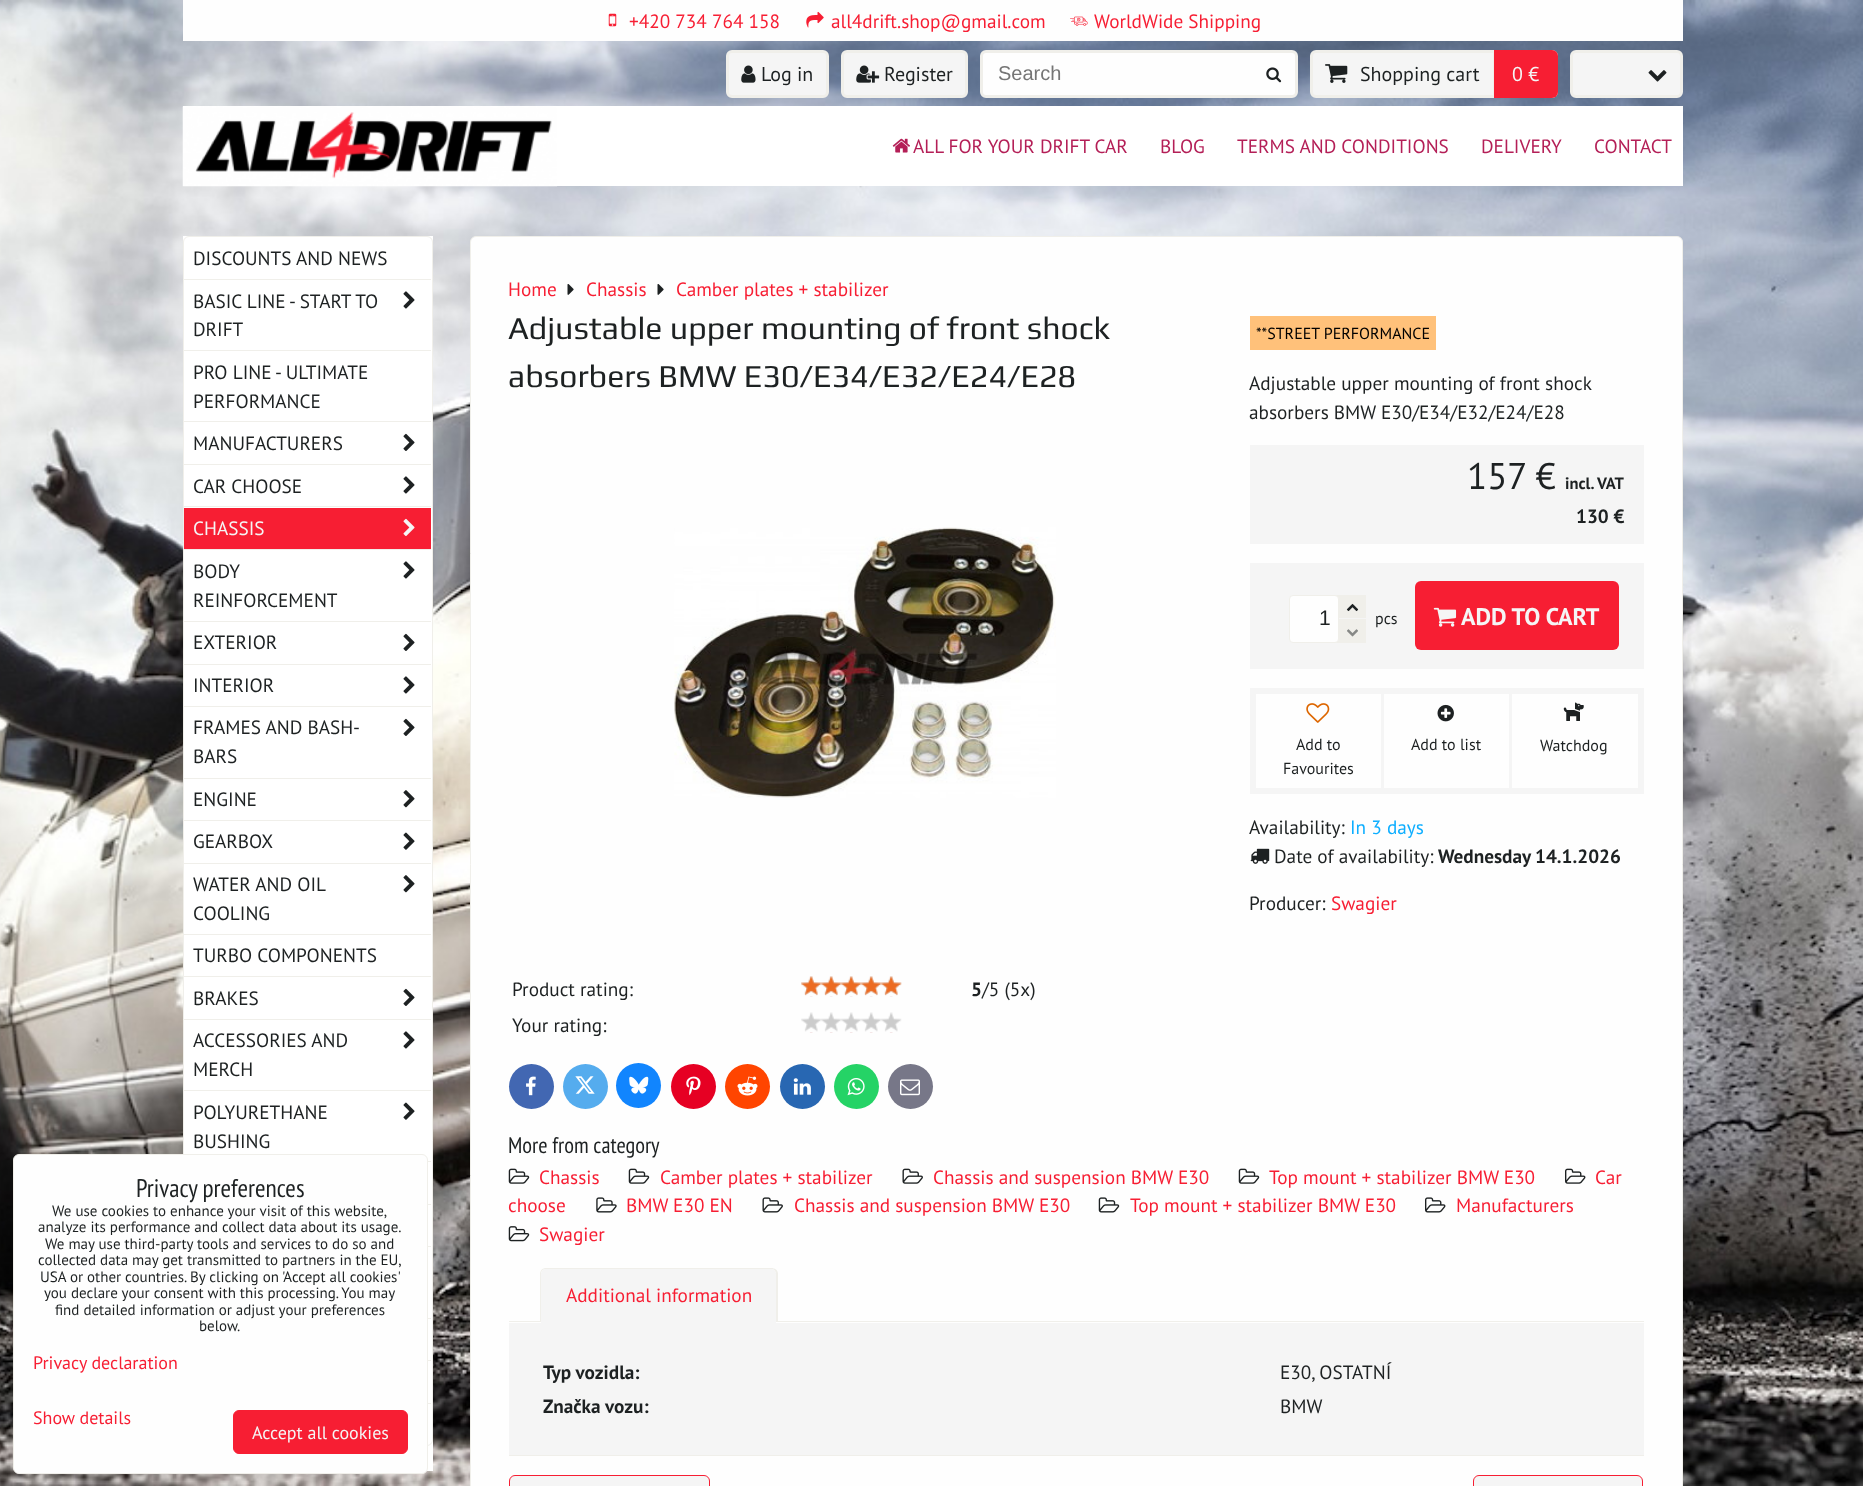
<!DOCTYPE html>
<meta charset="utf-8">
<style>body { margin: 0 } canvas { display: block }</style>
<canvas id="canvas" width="1863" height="1486"></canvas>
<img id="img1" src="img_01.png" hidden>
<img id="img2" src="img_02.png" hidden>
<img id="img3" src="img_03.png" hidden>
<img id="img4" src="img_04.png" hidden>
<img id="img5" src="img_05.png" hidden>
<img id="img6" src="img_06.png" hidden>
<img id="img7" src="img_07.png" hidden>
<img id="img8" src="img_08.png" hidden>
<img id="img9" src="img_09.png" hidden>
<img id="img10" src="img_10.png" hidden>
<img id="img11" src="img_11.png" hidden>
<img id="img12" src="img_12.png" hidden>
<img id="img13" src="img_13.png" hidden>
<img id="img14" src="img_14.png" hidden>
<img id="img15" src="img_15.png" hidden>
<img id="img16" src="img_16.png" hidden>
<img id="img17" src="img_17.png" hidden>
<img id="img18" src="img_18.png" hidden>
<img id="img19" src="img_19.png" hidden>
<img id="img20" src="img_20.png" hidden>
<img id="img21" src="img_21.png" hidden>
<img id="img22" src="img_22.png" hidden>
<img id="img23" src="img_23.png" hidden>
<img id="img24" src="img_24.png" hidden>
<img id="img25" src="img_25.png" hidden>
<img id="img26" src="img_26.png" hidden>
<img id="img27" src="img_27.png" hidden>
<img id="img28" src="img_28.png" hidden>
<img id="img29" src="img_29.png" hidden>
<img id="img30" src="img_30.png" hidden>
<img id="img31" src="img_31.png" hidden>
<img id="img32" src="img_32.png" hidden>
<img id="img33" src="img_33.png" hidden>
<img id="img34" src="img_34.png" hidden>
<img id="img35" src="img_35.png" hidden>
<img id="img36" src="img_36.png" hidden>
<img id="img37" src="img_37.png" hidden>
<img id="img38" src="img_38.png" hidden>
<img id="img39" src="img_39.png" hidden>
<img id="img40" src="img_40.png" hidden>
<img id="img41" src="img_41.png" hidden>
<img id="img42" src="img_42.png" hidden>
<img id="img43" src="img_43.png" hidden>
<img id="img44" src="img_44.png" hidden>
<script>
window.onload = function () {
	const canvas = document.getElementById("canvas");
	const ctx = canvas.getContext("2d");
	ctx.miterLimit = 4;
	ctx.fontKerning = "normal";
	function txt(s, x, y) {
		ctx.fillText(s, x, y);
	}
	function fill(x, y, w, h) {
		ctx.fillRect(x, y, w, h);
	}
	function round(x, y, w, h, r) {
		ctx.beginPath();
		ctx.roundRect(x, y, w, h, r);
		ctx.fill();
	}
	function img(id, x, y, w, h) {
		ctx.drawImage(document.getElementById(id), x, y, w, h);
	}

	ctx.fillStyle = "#FFFFFF";
	fill(0, 0, 1863, 1486);
	img("img1", 0, 0, 1863, 1486);
	ctx.fillStyle = "#FEFEFE";
	fill(183, 0, 1500, 41);
	img("img2", 608, 13, 9, 14);
	img("img3", 806, 11, 18, 17);
	img("img4", 1070, 16, 18, 10);
	ctx.fillStyle = "#F5F5F5";
	ctx.beginPath();
	ctx.roundRect(727.5, 51.5, 100, 45, 4.5);
	ctx.fill();
	ctx.strokeStyle = "#F0EFEA";
	ctx.lineWidth = 3;
	ctx.stroke();
	img("img5", 741, 65, 15, 18);
	ctx.beginPath();
	ctx.roundRect(842.5, 51.5, 124, 45, 4.5);
	ctx.fill();
	ctx.stroke();
	img("img6", 856, 65, 24, 18);
	ctx.fillStyle = "#FEFEFE";
	ctx.beginPath();
	ctx.roundRect(981.5, 51.5, 315, 45, 4.5);
	ctx.fill();
	ctx.stroke();
	img("img7", 1266, 67, 16, 16);
	ctx.fillStyle = "#F5F5F5";
	ctx.beginPath();
	ctx.roundRect(1311.5, 51.5, 245, 45, 4.5);
	ctx.fill();
	ctx.stroke();
	img("img8", 1325, 64, 23, 19);
	ctx.fillStyle = "#F71E33";
	ctx.beginPath();
	ctx.roundRect(1493, 50, 65, 48, [0, 6, 6, 0]);
	ctx.fill();
	ctx.fillStyle = "#F0EFEA";
	fill(1493, 50, 1, 48);
	ctx.fillStyle = "#F5F5F5";
	ctx.beginPath();
	ctx.roundRect(1571.5, 51.5, 110, 45, 4.5);
	ctx.fill();
	ctx.stroke();
	img("img9", 1648, 70, 19, 12);
	ctx.fillStyle = "#FFFFFF";
	fill(183, 106, 1500, 80);
	img("img10", 182, 106, 375, 81);
	img("img11", 892, 138, 18, 15);
	fill(183, 236, 250, 1235);
	ctx.beginPath();
	ctx.roundRect(183.5, 236.5, 249, 1209, 5.5);
	ctx.lineWidth = 1;
	ctx.stroke();
	ctx.fillStyle = "#F0EFEA";
	fill(184, 279, 247, 1);
	fill(184, 350, 247, 1);
	img("img12", 403, 291, 12, 18);
	fill(184, 421, 247, 1);
	fill(184, 464, 247, 1);
	img("img13", 403, 433, 12, 18);
	fill(184, 506, 247, 1);
	img("img12", 403, 476, 12, 18);
	ctx.fillStyle = "#F71E33";
	fill(184, 508, 247, 41);
	ctx.fillStyle = "#F0EFEA";
	fill(184, 549, 247, 1);
	img("img14", 403, 518, 12, 18);
	fill(184, 621, 247, 1);
	img("img12", 403, 561, 12, 18);
	fill(184, 664, 247, 1);
	img("img13", 403, 633, 12, 18);
	fill(184, 706, 247, 1);
	img("img12", 403, 676, 12, 18);
	fill(184, 778, 247, 1);
	img("img13", 403, 718, 12, 18);
	fill(184, 820, 247, 1);
	img("img15", 403, 790, 12, 18);
	fill(184, 863, 247, 1);
	img("img16", 403, 832, 12, 18);
	fill(184, 934, 247, 1);
	img("img15", 403, 875, 12, 18);
	fill(184, 976, 247, 1);
	fill(184, 1019, 247, 1);
	img("img13", 403, 988, 12, 18);
	fill(184, 1090, 247, 1);
	img("img12", 403, 1031, 12, 18);
	fill(428, 1161, 3, 1);
	img("img16", 403, 1102, 12, 18);
	fill(428, 1204, 3, 1);
	fill(428, 1246, 3, 1);
	fill(428, 1318, 3, 1);
	fill(428, 1360, 3, 1);
	fill(428, 1403, 3, 1);
	ctx.fillStyle = "#FEFEFE";
	ctx.beginPath();
	ctx.roundRect(470.5, 236.5, 1212, 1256, 5.5);
	ctx.fill();
	ctx.stroke();
	img("img17", 567, 284, 7, 11);
	img("img17", 657, 284, 7, 11);
	img("img18", 674, 527, 382, 271);
	img("img19", 801, 976, 101, 21);
	img("img20", 801, 976, 101, 20);
	img("img21", 801, 1012, 101, 21);
	ctx.fillStyle = "#FFC17A";
	fill(1250, 316, 186, 34);
	ctx.fillStyle = "#F5F5F5";
	fill(1250, 445, 394, 99);
	fill(1250, 563, 394, 106);
	ctx.fillStyle = "#F0EFEA";
	fill(1335, 595, 31, 48);
	ctx.fillStyle = "#FEFEFE";
	ctx.beginPath();
	ctx.roundRect(1289.5, 595.5, 49, 47, 3.5);
	ctx.fill();
	ctx.stroke();
	img("img22", 1346, 603, 13, 9);
	ctx.fillStyle = "#F5F5F5";
	fill(1339, 618, 27, 1);
	img("img23", 1347, 629, 11, 8);
	ctx.fillStyle = "#F71E33";
	round(1415, 581, 204, 69, 6);
	img("img24", 1433, 607, 24, 20);
	ctx.strokeStyle = "#F5F5F5";
	ctx.lineWidth = 6;
	ctx.strokeRect(1253, 691, 388, 100);
	img("img25", 1306, 703, 24, 20);
	ctx.fillStyle = "#F5F5F5";
	fill(1381, 694, 3, 94);
	img("img26", 1437, 704, 17, 18);
	fill(1509, 694, 3, 94);
	img("img27", 1563, 702, 21, 19);
	img("img28", 1250, 848, 20, 16);
	ctx.fillStyle = "#4267B2";
	ctx.beginPath();
	ctx.arc(531.5, 1086.5, 22.5, 0, Math.PI * 2);
	ctx.fill();
	img("img29", 526, 1076, 10, 20);
	ctx.fillStyle = "#55ACEE";
	ctx.beginPath();
	ctx.arc(585.5, 1086.5, 22.5, 0, Math.PI * 2);
	ctx.fill();
	img("img30", 575, 1076, 20, 18);
	ctx.fillStyle = "#1185FE";
	ctx.beginPath();
	ctx.arc(638.5, 1085.5, 22.5, 0, Math.PI * 2);
	ctx.fill();
	img("img31", 629, 1076, 20, 18);
	ctx.fillStyle = "#E60023";
	ctx.beginPath();
	ctx.arc(693.5, 1086.5, 22.5, 0, Math.PI * 2);
	ctx.fill();
	img("img32", 686, 1076, 15, 20);
	ctx.fillStyle = "#FF4500";
	ctx.beginPath();
	ctx.arc(747.5, 1086.5, 22.5, 0, Math.PI * 2);
	ctx.fill();
	img("img33", 737, 1076, 21, 20);
	ctx.fillStyle = "#2867B2";
	ctx.beginPath();
	ctx.arc(802.5, 1086.5, 22.5, 0, Math.PI * 2);
	ctx.fill();
	img("img34", 793, 1078, 18, 17);
	ctx.fillStyle = "#25D366";
	ctx.beginPath();
	ctx.arc(856.5, 1086.5, 22.5, 0, Math.PI * 2);
	ctx.fill();
	img("img35", 847, 1078, 18, 18);
	ctx.fillStyle = "#777788";
	ctx.beginPath();
	ctx.arc(910.5, 1086.5, 22.5, 0, Math.PI * 2);
	ctx.fill();
	img("img36", 900, 1079, 20, 17);
	img("img37", 508, 1168, 22, 16);
	img("img37", 628, 1168, 22, 16);
	img("img38", 902, 1168, 21, 16);
	img("img37", 1238, 1168, 22, 16);
	img("img39", 1565, 1168, 21, 16);
	img("img40", 596, 1197, 21, 16);
	img("img41", 762, 1197, 21, 16);
	img("img42", 1098, 1197, 22, 16);
	img("img43", 1425, 1197, 21, 16);
	img("img44", 508, 1226, 22, 16);
	ctx.fillStyle = "#F0EFEA";
	fill(509, 1321, 1135, 1);
	ctx.fillStyle = "#F5F5F5";
	ctx.beginPath();
	ctx.roundRect(541, 1269, 235, 54, [5, 5, 0, 0]);
	ctx.fill();
	ctx.fillStyle = "#F0EFEA";
	ctx.beginPath();
	ctx.moveTo(546, 1268);
	ctx.lineTo(771, 1268);
	ctx.bezierCurveTo(775, 1268, 778, 1270, 778, 1274);
	ctx.lineTo(778, 1322);
	ctx.lineTo(540, 1322);
	ctx.lineTo(540, 1274);
	ctx.bezierCurveTo(540, 1270, 543, 1268, 546, 1268);
	ctx.closePath();
	ctx.moveTo(546, 1269);
	ctx.lineTo(771, 1269);
	ctx.bezierCurveTo(774, 1269, 776, 1271, 776, 1274);
	ctx.lineTo(776, 1322);
	ctx.lineTo(541, 1322);
	ctx.lineTo(541, 1274);
	ctx.bezierCurveTo(541, 1271, 543, 1269, 546, 1269);
	ctx.closePath();
	ctx.fill("evenodd");
	ctx.fillStyle = "#F5F5F5";
	fill(509, 1323, 1135, 132);
	ctx.fillStyle = "#F0EFEA";
	fill(509, 1455, 1135, 1);
	ctx.fillStyle = "#F5F5F5";
	ctx.beginPath();
	ctx.roundRect(509.5, 1475.5, 200, 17, 5.5);
	ctx.fill();
	ctx.strokeStyle = "#F71E33";
	ctx.lineWidth = 1;
	ctx.stroke();
	ctx.beginPath();
	ctx.roundRect(1473.5, 1475.5, 169, 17, 5.5);
	ctx.fill();
	ctx.stroke();
	ctx.fillStyle = "#FEFEFE";
	ctx.beginPath();
	ctx.roundRect(13.5, 1154.5, 414, 319, 5.5);
	ctx.fill();
	ctx.strokeStyle = "#F0EFEA";
	ctx.stroke();
	ctx.fillStyle = "#F71E33";
	ctx.beginPath();
	ctx.roundRect(233.5, 1410.5, 174, 43, 5.5);
	ctx.fill();
	ctx.strokeStyle = "#F71E33";
	ctx.stroke();
	ctx.font = "19.25px PT Sans";
	txt("+420 734 764 158", 629, 28);
	txt("all4drift.shop@gmail.com", 831, 28);
	txt("WorldWide Shipping", 1094, 28);
	ctx.font = "20px PT Sans";
	ctx.fillStyle = "#1D2122";
	txt("Log in", 761, 81);
	txt("Register", 884, 81);
	ctx.font = "20px Liberation Sans";
	ctx.fillStyle = "#757575";
	txt("Search", 998, 80);
	ctx.font = "20px PT Sans";
	ctx.fillStyle = "#1D2122";
	txt("Shopping cart", 1360, 81);
	ctx.fillStyle = "#F5F5F5";
	txt("0 €", 1512, 81);
	ctx.font = "19.25px PT Sans";
	ctx.fillStyle = "#B41F57";
	txt("ALL FOR YOUR DRIFT CAR", 913, 153);
	txt("BLOG", 1160, 153);
	txt("TERMS AND CONDITIONS", 1237, 153);
	txt("DELIVERY", 1481, 153);
	txt("CONTACT", 1594, 153);
	ctx.fillStyle = "#1D2122";
	txt("DISCOUNTS AND NEWS", 193, 265);
	txt("BASIC LINE - START TO", 193, 308);
	txt("DRIFT", 193, 336);
	txt("PRO LINE - ULTIMATE", 193, 379);
	txt("PERFORMANCE", 193, 408);
	txt("MANUFACTURERS", 193, 450);
	txt("CAR CHOOSE", 193, 493);
	ctx.fillStyle = "#F5F5F5";
	txt("CHASSIS", 193, 535);
	ctx.fillStyle = "#1D2122";
	txt("BODY", 193, 578);
	txt("REINFORCEMENT", 193, 607);
	txt("EXTERIOR", 193, 649);
	txt("INTERIOR", 193, 692);
	txt("FRAMES AND BASH-", 193, 734);
	txt("BARS", 193, 763);
	txt("ENGINE", 193, 806);
	txt("GEARBOX", 193, 848);
	txt("WATER AND OIL", 193, 891);
	txt("COOLING", 193, 920);
	txt("TURBO COMPONENTS", 193, 962);
	txt("BRAKES", 193, 1005);
	txt("ACCESSORIES AND", 193, 1047);
	txt("MERCH", 193, 1076);
	txt("POLYURETHANE", 193, 1119);
	txt("BUSHING", 193, 1148);
	ctx.fillStyle = "#F71E33";
	txt("Home", 508, 296);
	txt("Chassis", 586, 296);
	txt("Camber plates + stabilizer", 676, 296);
	ctx.font = "32px Play";
	ctx.fillStyle = "#1D2122";
	txt("Adjustable upper mounting of front shock", 508, 339);
	txt("absorbers BMW E30/E34/E32/E24/E28", 508, 387);
	ctx.font = "19.25px PT Sans";
	txt("Product rating:", 512, 996);
	ctx.font = "bold 19.25px PT Sans";
	txt("5", 971, 996);
	ctx.font = "19.25px PT Sans";
	txt("/5 (5x)", 982, 996);
	txt("Your rating:", 512, 1032);
	ctx.font = "16px PT Sans";
	ctx.fillStyle = "#000000";
	txt("**STREET PERFORMANCE", 1256, 339);
	ctx.font = "19.25px PT Sans";
	ctx.fillStyle = "#1D2122";
	txt("Adjustable upper mounting of front shock", 1249, 390);
	txt("absorbers BMW E30/E34/E32/E24/E28", 1249, 419);
	ctx.font = "37px PT Sans";
	txt("157 €", 1467, 489);
	ctx.font = "bold 16.5px PT Sans";
	txt("incl. VAT", 1565, 489);
	ctx.font = "bold 19.25px PT Sans";
	txt("130 €", 1576, 523);
	ctx.font = "21px Liberation Sans";
	txt("1", 1319, 625);
	ctx.font = "16px PT Sans";
	txt("pcs", 1375, 624);
	ctx.font = "bold 24px PT Sans";
	ctx.fillStyle = "#F5F5F5";
	txt("ADD TO CART", 1461, 625);
	ctx.font = "16px PT Sans";
	ctx.fillStyle = "#1D2122";
	txt("Add to", 1296, 750);
	txt("Favourites", 1283, 774);
	txt("Add to list", 1411, 750);
	txt("Watchdog", 1540, 751);
	ctx.font = "19.25px PT Sans";
	txt("Availability:", 1249, 834);
	ctx.fillStyle = "#0DAEFF";
	txt("In 3 days", 1350, 834);
	ctx.fillStyle = "#1D2122";
	txt("Date of availability:", 1274, 863);
	ctx.font = "bold 19.25px PT Sans";
	txt("Wednesday", 1438, 863);
	txt("14.1.2026", 1535, 863);
	ctx.font = "19.25px PT Sans";
	txt("Producer:", 1249, 910);
	ctx.fillStyle = "#F71E33";
	txt("Swagier", 1331, 910);
	ctx.font = "22.5px PT Sans Narrow";
	ctx.fillStyle = "#1D2122";
	txt("More from category", 508, 1153);
	ctx.font = "19.25px PT Sans";
	ctx.fillStyle = "#F71E33";
	txt("Chassis", 539, 1184);
	txt("Camber plates + stabilizer", 660, 1184);
	txt("Chassis and suspension BMW E30", 933, 1184);
	txt("Top mount + stabilizer BMW E30", 1269, 1184);
	txt("Car", 1595, 1184);
	txt("choose", 508, 1212);
	txt("BMW E30 EN", 626, 1212);
	txt("Chassis and suspension BMW E30", 794, 1212);
	txt("Top mount + stabilizer BMW E30", 1130, 1212);
	txt("Manufacturers", 1456, 1212);
	txt("Swagier", 539, 1241);
	txt("Additional information", 566, 1302);
	ctx.font = "bold 19.25px PT Sans";
	ctx.fillStyle = "#1D2122";
	txt("Typ vozidla:", 543, 1379);
	ctx.font = "19.25px PT Sans";
	txt("E30, OSTATNÍ", 1280, 1379);
	ctx.font = "bold 19.25px PT Sans";
	txt("Značka vozu:", 543, 1413);
	ctx.font = "19.25px PT Sans";
	txt("BMW", 1280, 1413);
	ctx.font = "25.5px PT Sans Narrow";
	txt("Privacy preferences", 136, 1197);
	ctx.font = "15px PT Sans";
	txt("We use cookies to enhance your visit of this website,", 52, 1216);
	txt("analyze its performance and collect data about its usage.", 38, 1232);
	txt("We may use third-party tools and services to do so and", 45, 1249);
	txt("collected data may get transmitted to partners in the EU,", 38, 1265);
	txt("USA or other countries. By clicking on 'Accept all cookies'", 40, 1282);
	txt("you declare your consent with this processing. You may", 44, 1298);
	txt("find detailed information or adjust your preferences", 55, 1315);
	txt("below.", 199, 1331);
	ctx.font = "18px PT Sans";
	ctx.fillStyle = "#F71E33";
	txt("Privacy declaration", 33, 1369);
	txt("Show details", 33, 1424);
	ctx.fillStyle = "#F5F5F5";
	txt("Accept all cookies", 252, 1439);
};
</script>
